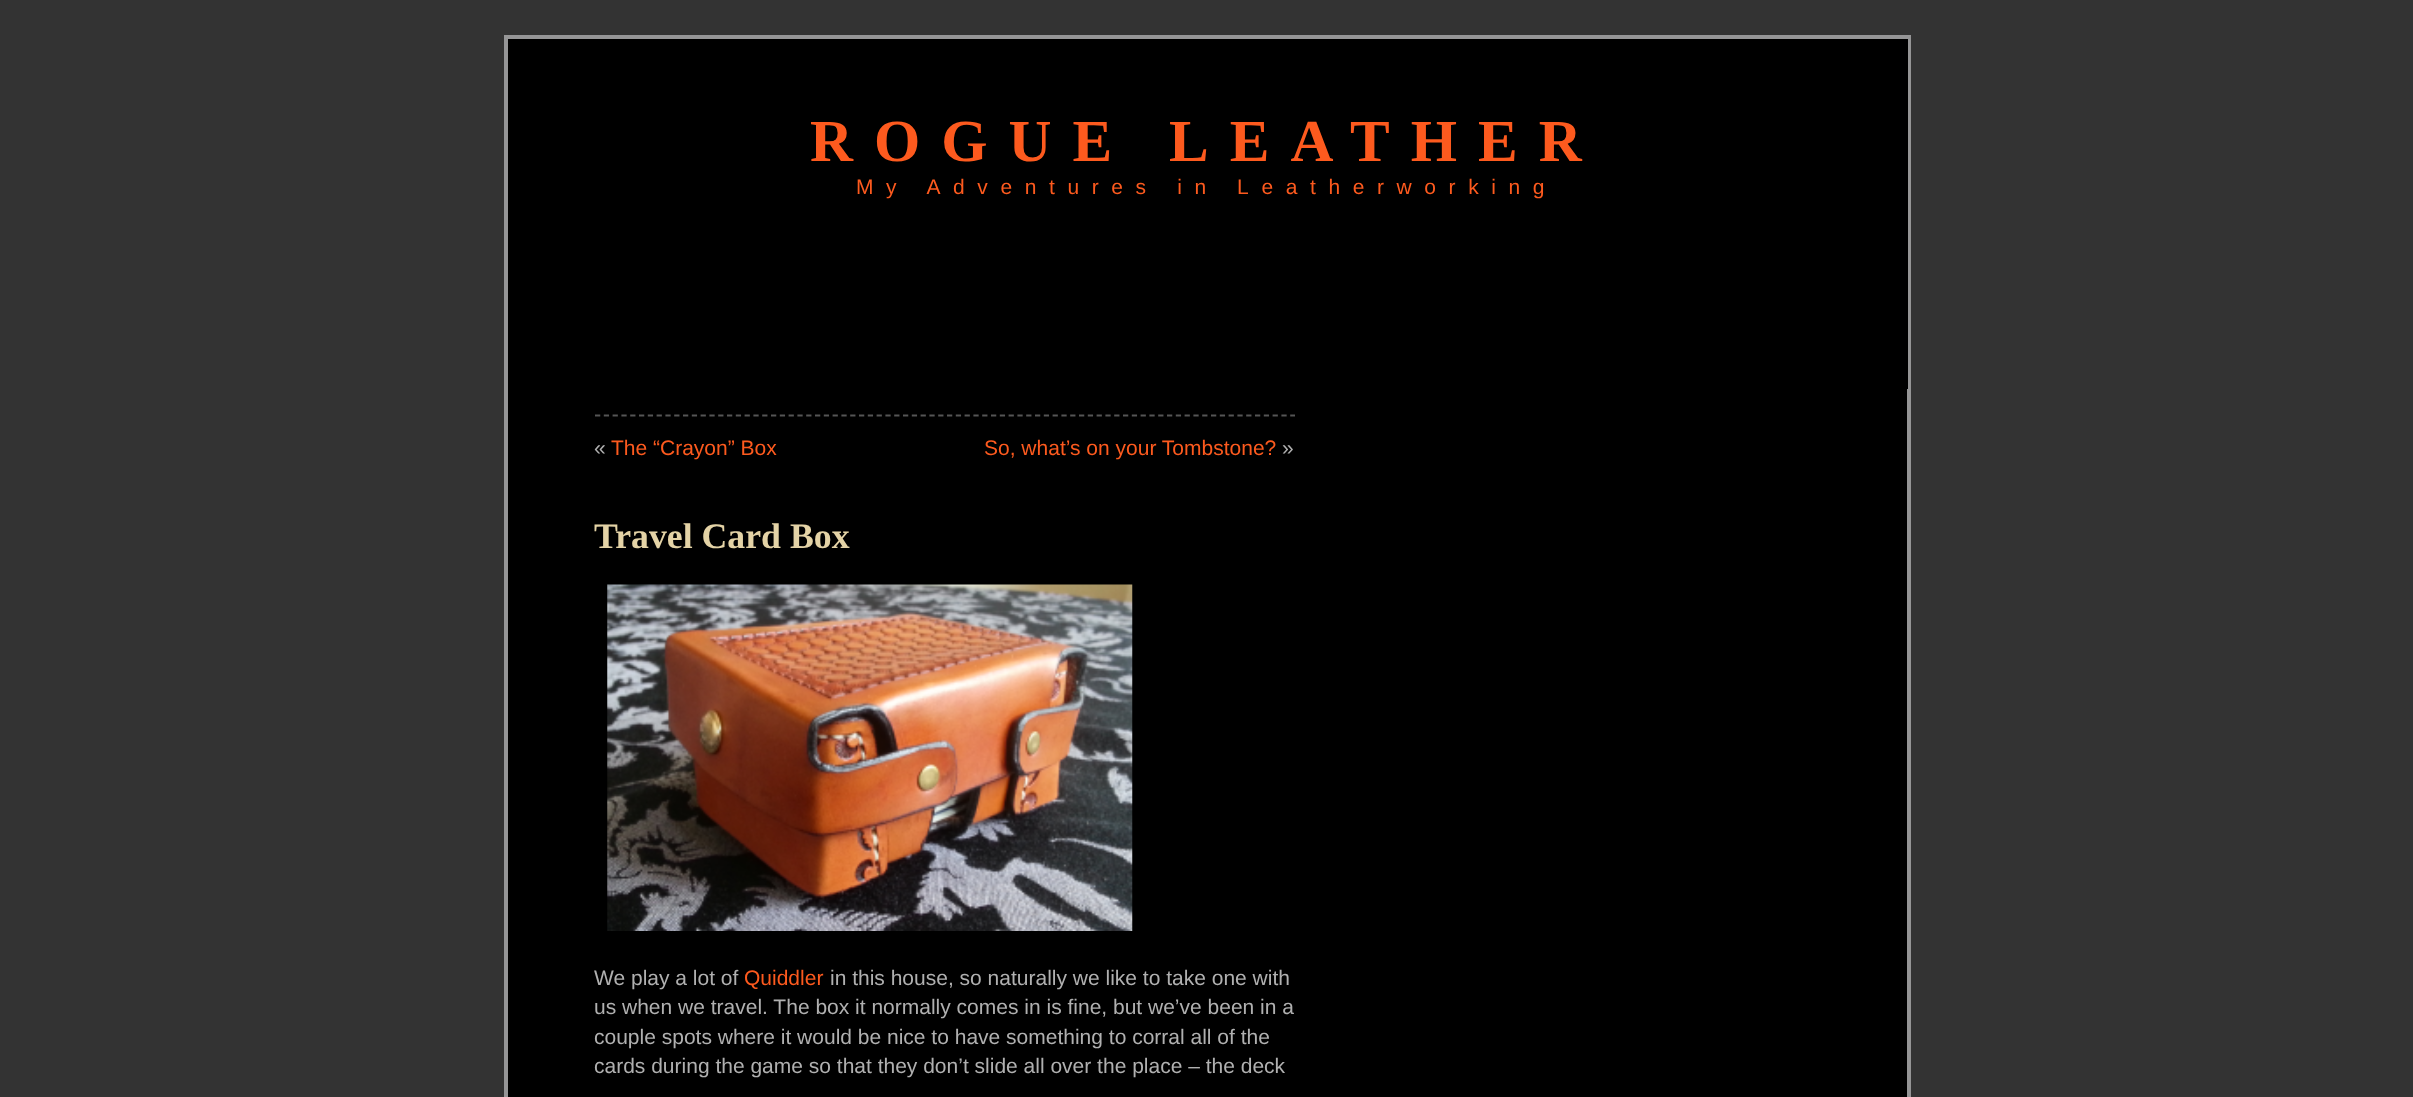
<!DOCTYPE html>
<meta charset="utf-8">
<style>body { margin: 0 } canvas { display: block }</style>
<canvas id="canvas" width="2413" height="1097"></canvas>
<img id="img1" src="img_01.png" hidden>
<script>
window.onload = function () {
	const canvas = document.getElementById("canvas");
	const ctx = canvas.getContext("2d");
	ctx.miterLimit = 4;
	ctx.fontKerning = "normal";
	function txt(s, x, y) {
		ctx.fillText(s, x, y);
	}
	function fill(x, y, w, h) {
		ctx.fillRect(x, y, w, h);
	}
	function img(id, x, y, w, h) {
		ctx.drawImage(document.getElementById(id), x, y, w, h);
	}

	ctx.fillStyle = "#333333";
	fill(0, 0, 2413, 1097);
	ctx.fillStyle = "#000000";
	fill(508, 389, 1399, 708);
	ctx.strokeStyle = "#959596";
	ctx.lineWidth = 4;
	ctx.strokeRect(506, 37, 1403, 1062);
	fill(508, 39, 1400, 350);
	ctx.beginPath();
	ctx.moveTo(595, 415.5);
	ctx.lineTo(1295, 415.5);
	ctx.strokeStyle = "#555555";
	ctx.lineWidth = 1.8;
	ctx.setLineDash([5.25, 3.55]);
	ctx.stroke();
	img("img1", 607, 584, 526, 347);
	ctx.letterSpacing = "21px";
	ctx.font = "bold 59.5px Liberation Serif";
	ctx.fillStyle = "#FD5A1E";
	txt("ROGUE LEATHER", 810, 161);
	ctx.letterSpacing = "12.6px";
	ctx.font = "21px Liberation Sans";
	txt("My Adventures in Leatherworking", 856, 194);
	ctx.letterSpacing = "0px";
	ctx.fillStyle = "#B0B0B0";
	txt("«", 594, 455);
	ctx.fillStyle = "#FD5A1E";
	txt("The “Crayon” Box", 611, 455);
	txt("So, what’s on your Tombstone?", 984, 455);
	ctx.fillStyle = "#B0B0B0";
	txt("»", 1282, 455);
	ctx.font = "bold 35.75px Liberation Serif";
	ctx.fillStyle = "#E4D3A6";
	txt("Travel Card Box", 594, 548);
	ctx.font = "21px Liberation Sans";
	ctx.fillStyle = "#B0B0B0";
	txt("We play a lot of", 594, 985);
	ctx.fillStyle = "#FD5A1E";
	txt("Quiddler", 744, 985);
	ctx.fillStyle = "#B0B0B0";
	txt("in this house, so naturally we like to take one with", 830, 985);
	txt("us when we travel. The box it normally comes in is fine, but we’ve been in a", 594, 1014);
	txt("couple spots where it would be nice to have something to corral all of the", 594, 1044);
	txt("cards during the game so that they don’t slide all over the place – the deck", 594, 1073);
};
</script>
